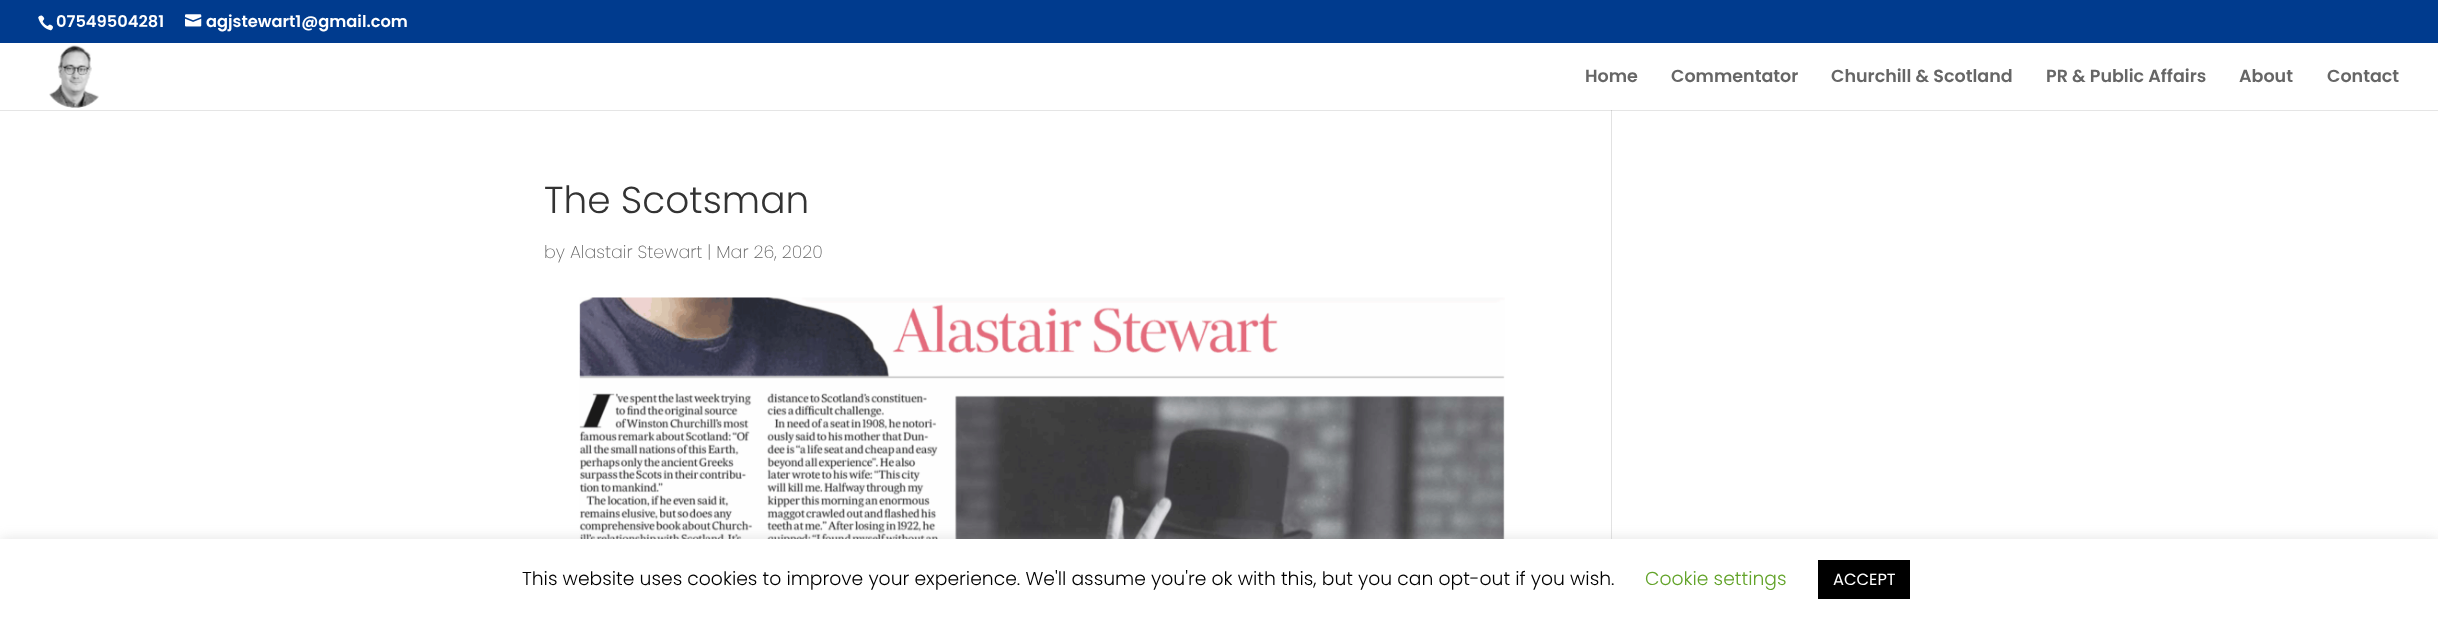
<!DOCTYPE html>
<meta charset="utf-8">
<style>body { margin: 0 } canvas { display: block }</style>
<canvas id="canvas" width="2438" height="619"></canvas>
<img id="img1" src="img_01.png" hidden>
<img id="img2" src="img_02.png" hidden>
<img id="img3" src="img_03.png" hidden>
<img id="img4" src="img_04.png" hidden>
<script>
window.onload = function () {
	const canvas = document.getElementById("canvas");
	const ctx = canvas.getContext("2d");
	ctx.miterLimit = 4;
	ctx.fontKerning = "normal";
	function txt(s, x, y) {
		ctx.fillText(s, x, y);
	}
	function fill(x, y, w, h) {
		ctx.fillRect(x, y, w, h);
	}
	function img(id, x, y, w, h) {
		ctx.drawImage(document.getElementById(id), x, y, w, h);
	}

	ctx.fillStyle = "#FFFFFF";
	fill(0, 0, 2438, 619);
	ctx.fillStyle = "#003B8E";
	fill(0, 0, 2438, 43);
	img("img1", 38, 15, 15, 16);
	img("img2", 185, 14, 17, 13);
	ctx.fillStyle = "#E2E2E2";
	fill(1611, 109, 1, 430);
	ctx.fillStyle = "rgba(0, 0, 0, 0.1)";
	ctx.beginPath();
	ctx.moveTo(0, 110);
	ctx.lineTo(0, 111);
	ctx.lineTo(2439, 111);
	ctx.lineTo(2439, 44);
	ctx.lineTo(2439, 110);
	ctx.closePath();
	ctx.fill();
	ctx.fillStyle = "#FFFFFF";
	fill(1611, 109, 1, 1);
	img("img3", 49, 45, 50, 63);
	img("img4", 579, 297, 926, 242);
	ctx.fillStyle = "rgba(172, 171, 171, 0.3)";
	ctx.filter = "blur(6px)";
	ctx.beginPath();
	ctx.rect(0, 538, 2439, 81);
	ctx.fill();
	ctx.filter = "none";
	ctx.fillStyle = "#FFFFFF";
	fill(0, 539, 2438, 80);
	ctx.fillStyle = "#000000";
	fill(1818, 560, 92, 39);
	ctx.font = "600 16.25px Poppins";
	ctx.fillStyle = "#FFFFFF";
	txt("07549504281", 56, 27);
	txt("agjstewart1@gmail.com", 206, 27);
	ctx.font = "600 17.5px Poppins";
	ctx.fillStyle = "#666666";
	txt("Home", 1585, 82);
	txt("Commentator", 1671, 82);
	txt("Churchill & Scotland", 1831, 82);
	txt("PR & Public Affairs", 2046, 82);
	txt("About", 2239, 82);
	txt("Contact", 2327, 82);
	ctx.font = "300 37.5px Poppins";
	ctx.fillStyle = "#333333";
	txt("The Scotsman", 544, 213);
	ctx.font = "200 17.5px Poppins";
	ctx.fillStyle = "#666666";
	txt("by Alastair Stewart | Mar 26, 2020", 544, 258);
	ctx.font = "300 18.75px Poppins";
	ctx.fillStyle = "#000000";
	txt("This website uses cookies to improve your experience. We'll assume you're ok with this, but you can opt-out if you wish.", 522, 585);
	ctx.fillStyle = "#62A329";
	txt("Cookie settings", 1645, 585);
	ctx.font = "16.25px Poppins";
	ctx.fillStyle = "#FFFFFF";
	txt("ACCEPT", 1833, 585);
};
</script>
